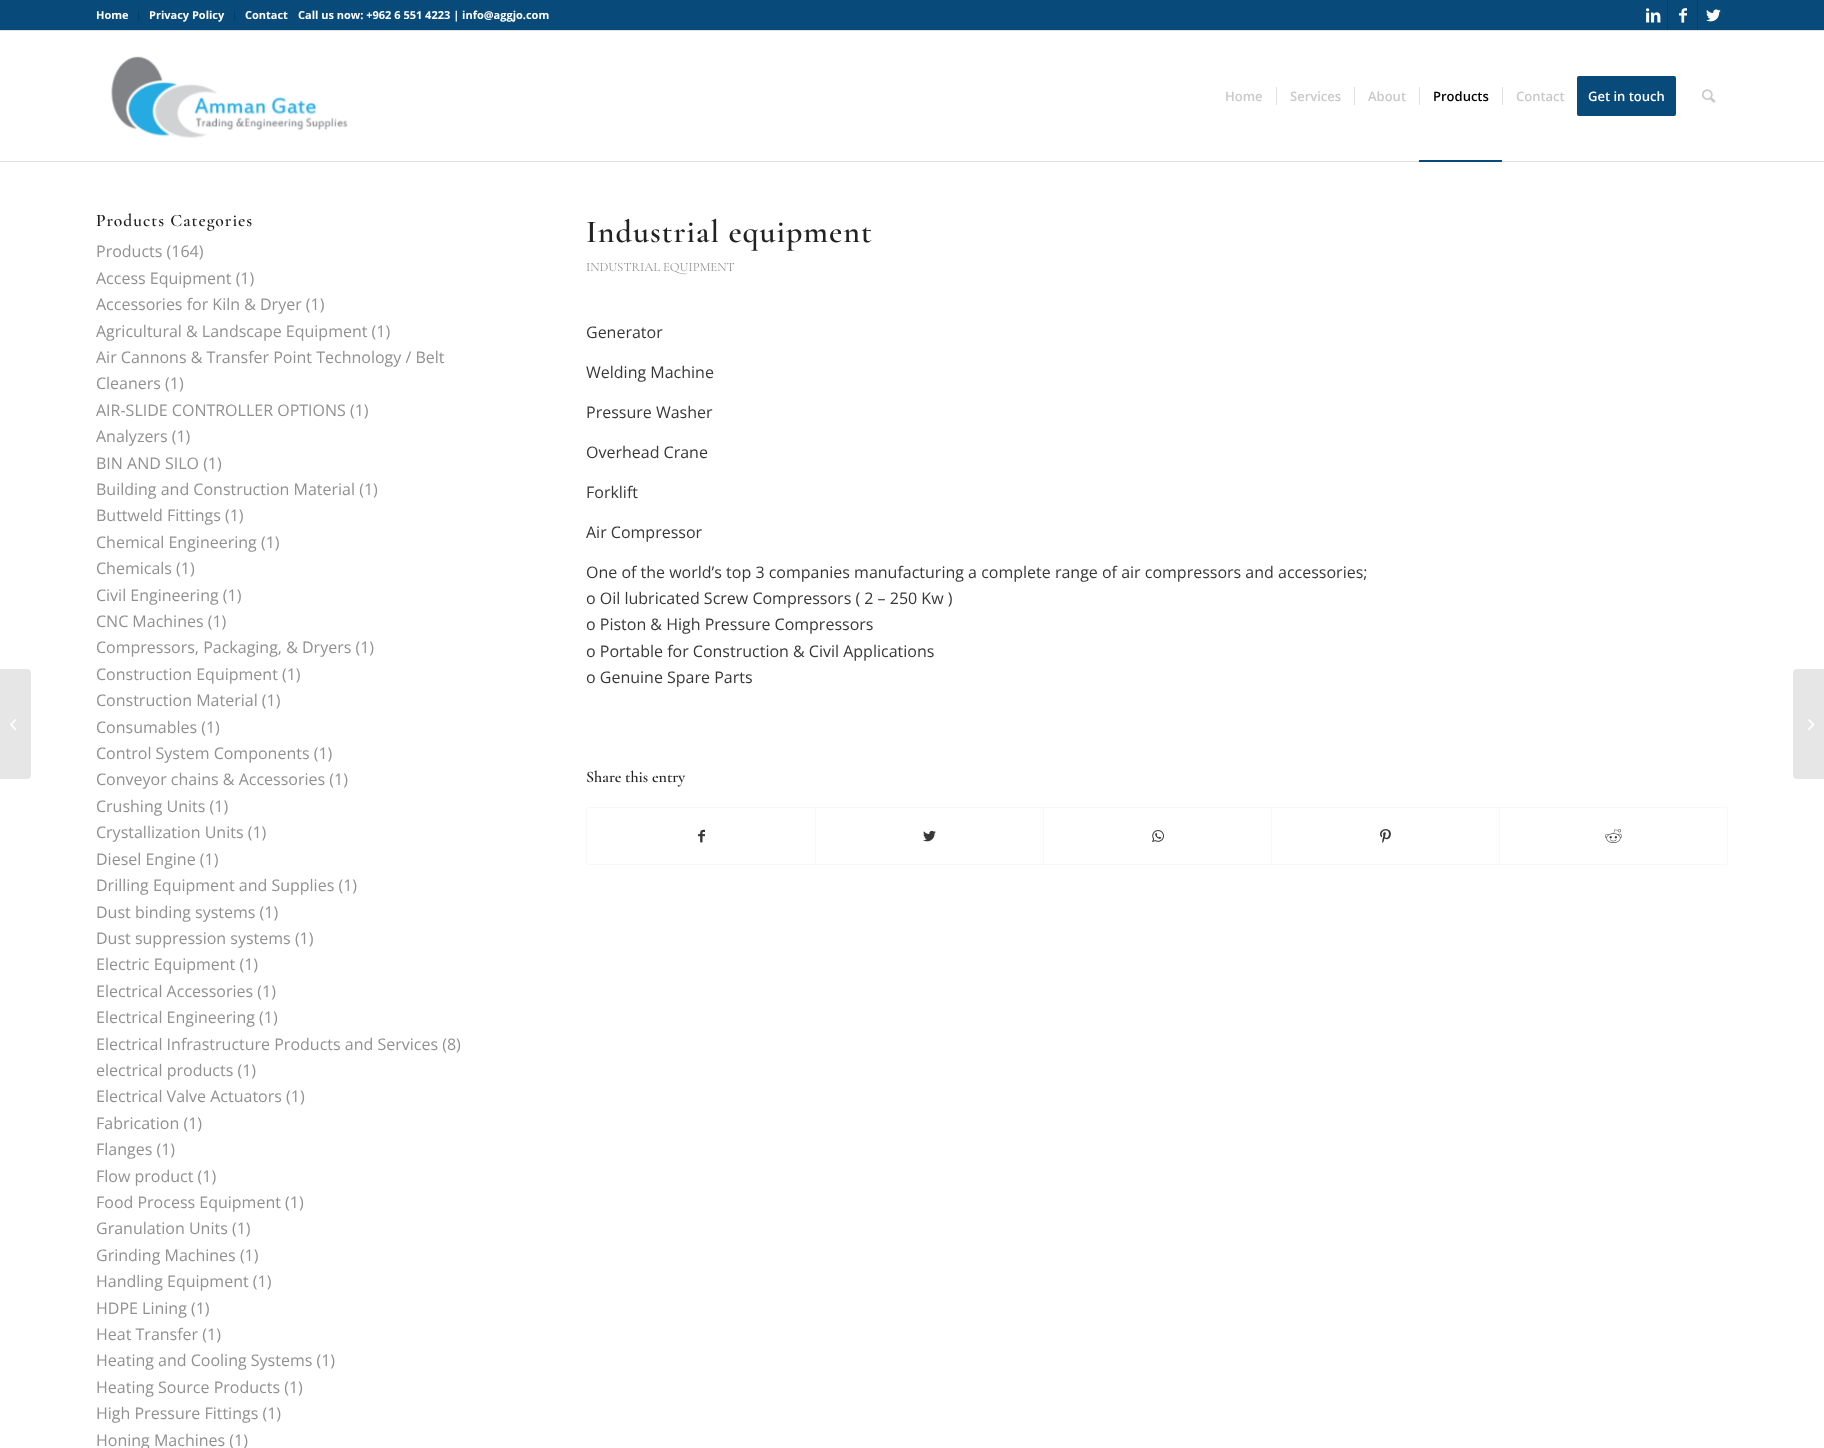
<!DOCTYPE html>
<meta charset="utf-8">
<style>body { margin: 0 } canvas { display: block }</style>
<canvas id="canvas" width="1824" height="1448"></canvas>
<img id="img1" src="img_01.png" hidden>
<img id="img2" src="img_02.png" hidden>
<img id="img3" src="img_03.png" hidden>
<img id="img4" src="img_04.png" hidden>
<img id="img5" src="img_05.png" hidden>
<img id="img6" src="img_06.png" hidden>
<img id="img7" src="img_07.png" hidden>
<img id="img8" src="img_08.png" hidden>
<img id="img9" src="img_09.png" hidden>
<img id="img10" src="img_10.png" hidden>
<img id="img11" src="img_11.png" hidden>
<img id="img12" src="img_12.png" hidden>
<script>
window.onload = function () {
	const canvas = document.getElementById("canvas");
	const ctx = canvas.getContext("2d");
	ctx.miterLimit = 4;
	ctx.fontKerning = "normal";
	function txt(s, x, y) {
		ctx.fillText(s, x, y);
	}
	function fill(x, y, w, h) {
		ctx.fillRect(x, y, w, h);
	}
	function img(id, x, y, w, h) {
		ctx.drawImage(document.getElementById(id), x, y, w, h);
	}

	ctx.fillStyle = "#FFFFFF";
	fill(0, 0, 1824, 1448);
	ctx.fillStyle = "#084A79";
	fill(0, 0, 1824, 30);
	ctx.fillStyle = "#E1E1E1";
	fill(0, 30, 1824, 1);
	ctx.fillStyle = "#073E63";
	fill(138, 10, 1, 10);
	fill(234, 10, 1, 10);
	fill(1667, 0, 1, 30);
	img("img1", 1646, 8, 15, 15);
	fill(1697, 0, 1, 30);
	img("img2", 1679, 8, 8, 15);
	img("img3", 1706, 9, 15, 13);
	ctx.fillStyle = "#E1E1E1";
	fill(0, 161, 1824, 1);
	img("img4", 111, 56, 237, 82);
	fill(1276, 87, 1, 18);
	fill(1354, 87, 1, 18);
	fill(1419, 87, 1, 18);
	ctx.fillStyle = "#084A79";
	fill(1419, 160, 83, 2);
	ctx.fillStyle = "#E1E1E1";
	fill(1502, 87, 1, 18);
	ctx.fillStyle = "#084A79";
	ctx.beginPath();
	ctx.roundRect(1578, 77, 97, 38, 1);
	ctx.fill();
	ctx.strokeStyle = "#084A79";
	ctx.lineWidth = 2;
	ctx.stroke();
	img("img5", 1702, 89, 14, 14);
	ctx.fillStyle = "#E6E6E6";
	ctx.beginPath();
	ctx.roundRect(0, 669, 31, 110, [0, 4, 4, 0]);
	ctx.fill();
	img("img6", 10, 719, 7, 11);
	ctx.beginPath();
	ctx.roundRect(586.5, 807.5, 1141, 57, 2.5);
	ctx.strokeStyle = "#F8F8F8";
	ctx.lineWidth = 1;
	ctx.stroke();
	img("img7", 698, 829, 7, 14);
	ctx.fillStyle = "#F8F8F8";
	fill(815, 808, 1, 56);
	img("img8", 923, 830, 13, 12);
	fill(1043, 808, 1, 56);
	img("img9", 1152, 830, 12, 13);
	fill(1271, 808, 1, 56);
	img("img10", 1380, 829, 11, 14);
	fill(1499, 808, 1, 56);
	img("img11", 1605, 829, 17, 15);
	ctx.fillStyle = "#E6E6E6";
	ctx.beginPath();
	ctx.roundRect(1793, 669, 31, 110, [4, 0, 0, 4]);
	ctx.fill();
	img("img12", 1808, 719, 7, 11);
	ctx.font = "bold 11px Open Sans";
	ctx.fillStyle = "#FFFFFF";
	txt("Home", 96, 19);
	txt("Privacy Policy", 149, 19);
	txt("Contact", 245, 19);
	txt("Call us now: +962 6 551 4223 | info@aggjo.com", 298, 19);
	ctx.font = "600 13px Open Sans";
	ctx.fillStyle = "#C9C9C9";
	txt("Home", 1225, 101);
	txt("Services", 1290, 101);
	txt("About", 1368, 101);
	ctx.fillStyle = "#000000";
	txt("Products", 1433, 101);
	ctx.fillStyle = "#C9C9C9";
	txt("Contact", 1516, 101);
	ctx.fillStyle = "#FFFFFF";
	txt("Get in touch", 1588, 101);
	ctx.letterSpacing = "1px";
	ctx.font = "600 17.5px Cormorant Garamond";
	ctx.fillStyle = "#222222";
	txt("Products Categories", 96, 226);
	ctx.letterSpacing = "0px";
	ctx.font = "16px Open Sans";
	ctx.fillStyle = "#919191";
	txt("Products (164)", 96, 257);
	txt("Access Equipment (1)", 96, 284);
	txt("Accessories for Kiln & Dryer (1)", 96, 310);
	txt("Agricultural & Landscape Equipment (1)", 96, 337);
	txt("Air Cannons & Transfer Point Technology / Belt", 96, 363);
	txt("Cleaners (1)", 96, 389);
	txt("AIR-SLIDE CONTROLLER OPTIONS (1)", 96, 416);
	txt("Analyzers (1)", 96, 442);
	txt("BIN AND SILO (1)", 96, 469);
	txt("Building and Construction Material (1)", 96, 495);
	txt("Buttweld Fittings (1)", 96, 521);
	txt("Chemical Engineering (1)", 96, 548);
	txt("Chemicals (1)", 96, 574);
	txt("Civil Engineering (1)", 96, 601);
	txt("CNC Machines (1)", 96, 627);
	txt("Compressors, Packaging, & Dryers (1)", 96, 653);
	txt("Construction Equipment (1)", 96, 680);
	txt("Construction Material (1)", 96, 706);
	txt("Consumables (1)", 96, 733);
	txt("Control System Components (1)", 96, 759);
	txt("Conveyor chains & Accessories (1)", 96, 785);
	txt("Crushing Units (1)", 96, 812);
	txt("Crystallization Units (1)", 96, 838);
	txt("Diesel Engine (1)", 96, 865);
	txt("Drilling Equipment and Supplies (1)", 96, 891);
	txt("Dust binding systems (1)", 96, 918);
	txt("Dust suppression systems (1)", 96, 944);
	txt("Electric Equipment (1)", 96, 970);
	txt("Electrical Accessories (1)", 96, 997);
	txt("Electrical Engineering (1)", 96, 1023);
	txt("Electrical Infrastructure Products and Services (8)", 96, 1050);
	txt("electrical products (1)", 96, 1076);
	txt("Electrical Valve Actuators (1)", 96, 1102);
	txt("Fabrication (1)", 96, 1129);
	txt("Flanges (1)", 96, 1155);
	txt("Flow product (1)", 96, 1182);
	txt("Food Process Equipment (1)", 96, 1208);
	txt("Granulation Units (1)", 96, 1234);
	txt("Grinding Machines (1)", 96, 1261);
	txt("Handling Equipment (1)", 96, 1287);
	txt("HDPE Lining (1)", 96, 1314);
	txt("Heat Transfer (1)", 96, 1340);
	txt("Heating and Cooling Systems (1)", 96, 1366);
	txt("Heating Source Products (1)", 96, 1393);
	txt("High Pressure Fittings (1)", 96, 1419);
	txt("Honing Machines (1)", 96, 1446);
	ctx.letterSpacing = "1px";
	ctx.font = "600 32px Cormorant Garamond";
	ctx.fillStyle = "#222222";
	txt("Industrial equipment", 586, 242);
	ctx.letterSpacing = "0px";
	ctx.font = "12.75px Cormorant Garamond";
	ctx.fillStyle = "#919191";
	txt("INDUSTRIAL EQUIPMENT", 586, 271);
	ctx.font = "16px Open Sans";
	ctx.fillStyle = "#383838";
	txt("Generator", 586, 338);
	txt("Welding Machine", 586, 378);
	txt("Pressure Washer", 586, 418);
	txt("Overhead Crane", 586, 458);
	txt("Forklift", 586, 498);
	txt("Air Compressor", 586, 538);
	txt("One of the world’s top 3 companies manufacturing a complete range of air compressors and accessories;", 586, 578);
	txt("o Oil lubricated Screw Compressors ( 2 – 250 Kw )", 586, 604);
	txt("o Piston & High Pressure Compressors", 586, 630);
	txt("o Portable for Construction & Civil Applications", 586, 657);
	txt("o Genuine Spare Parts", 586, 683);
	ctx.font = "600 16px Cormorant Garamond";
	ctx.fillStyle = "#222222";
	txt("Share this entry", 586, 782);
};
</script>
